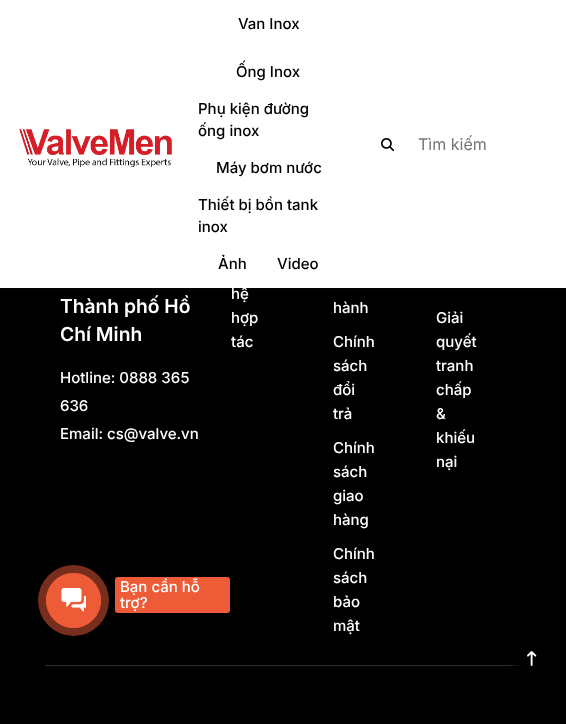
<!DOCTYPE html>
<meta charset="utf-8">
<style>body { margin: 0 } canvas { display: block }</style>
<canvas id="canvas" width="566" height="724"></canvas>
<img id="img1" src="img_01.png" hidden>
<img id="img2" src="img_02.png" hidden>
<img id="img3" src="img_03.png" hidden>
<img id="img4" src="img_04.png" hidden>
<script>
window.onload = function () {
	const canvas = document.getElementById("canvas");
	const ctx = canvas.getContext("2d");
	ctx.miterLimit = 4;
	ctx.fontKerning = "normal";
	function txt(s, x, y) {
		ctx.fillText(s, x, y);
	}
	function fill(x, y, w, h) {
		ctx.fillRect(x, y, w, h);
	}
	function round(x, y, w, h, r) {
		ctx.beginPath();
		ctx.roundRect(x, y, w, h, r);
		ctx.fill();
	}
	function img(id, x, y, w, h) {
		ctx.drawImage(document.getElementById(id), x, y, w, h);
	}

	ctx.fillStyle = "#000000";
	fill(0, 0, 566, 724);
	ctx.fillStyle = "rgba(33, 37, 41, 0.07)";
	ctx.filter = "blur(1.5px)";
	ctx.beginPath();
	ctx.rect(0, 2, 566, 288);
	ctx.fill();
	ctx.filter = "none";
	ctx.fillStyle = "#FFFFFF";
	fill(0, 0, 566, 288);
	img("img1", 19, 129, 153, 38);
	img("img2", 381, 138, 13, 13);
	ctx.fillStyle = "#2B2B2B";
	fill(45, 665, 476, 1);
	ctx.beginPath();
	ctx.arc(73.5, 600.5, 27, 0, Math.PI * 2);
	ctx.strokeStyle = "#EE5B37";
	ctx.stroke();
	ctx.fillStyle = "rgba(238, 91, 55, 0.5)";
	ctx.beginPath();
	ctx.arc(73.5, 600.5, 35.5, 0, Math.PI * 2);
	ctx.fill();
	ctx.fillStyle = "#EE5B37";
	ctx.beginPath();
	ctx.arc(73.5, 600.5, 27.5, 0, Math.PI * 2);
	ctx.fill();
	img("img3", 61, 588, 25, 24);
	round(115, 577, 115, 36, 3);
	ctx.save();
	ctx.beginPath();
	ctx.moveTo(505, 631);
	ctx.lineTo(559, 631);
	ctx.lineTo(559, 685);
	ctx.lineTo(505, 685);
	ctx.closePath();
	ctx.moveTo(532, 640);
	ctx.bezierCurveTo(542, 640, 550, 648, 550, 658);
	ctx.bezierCurveTo(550, 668, 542, 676, 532, 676);
	ctx.bezierCurveTo(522, 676, 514, 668, 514, 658);
	ctx.bezierCurveTo(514, 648, 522, 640, 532, 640);
	ctx.closePath();
	ctx.clip("evenodd");
	ctx.fillStyle = "#000000";
	ctx.filter = "blur(2.5px)";
	ctx.beginPath();
	ctx.roundRect(514, 640, 36, 36, 18);
	ctx.fill();
	ctx.filter = "none";
	ctx.restore();
	ctx.fillStyle = "rgba(0, 0, 0, 0.7)";
	ctx.beginPath();
	ctx.arc(532, 658, 18, 0, Math.PI * 2);
	ctx.fill();
	img("img4", 527, 651, 10, 15);
	ctx.font = "500 15px Inter";
	ctx.fillStyle = "#000000";
	txt("Van Inox", 238, 29);
	txt("Ống Inox", 236, 77);
	txt("Phụ kiện đường", 198, 114);
	txt("ống inox", 198, 136);
	txt("Máy bơm nước", 216, 173);
	txt("Thiết bị bồn tank", 198, 210);
	txt("inox", 198, 232);
	txt("Ảnh", 218, 269);
	txt("Video", 277, 269);
	ctx.font = "16px Inter";
	ctx.fillStyle = "#757575";
	txt("Tìm kiếm", 418, 150);
	ctx.font = "600 19.25px Inter";
	ctx.fillStyle = "#FFFFFF";
	txt("Thành phố Hồ", 60, 313);
	txt("Chí Minh", 60, 341);
	ctx.font = "500 15px Inter";
	txt("Hotline: 0888 365", 60, 383);
	txt("636", 60, 411);
	txt("Email: cs@valve.vn", 60, 439);
	txt("hệ", 231, 299);
	txt("hợp", 231, 323);
	txt("tác", 231, 347);
	txt("hành", 333, 313);
	txt("Chính", 333, 347);
	txt("sách", 333, 371);
	txt("đổi", 333, 395);
	txt("trả", 333, 419);
	txt("Chính", 333, 453);
	txt("sách", 333, 477);
	txt("giao", 333, 501);
	txt("hàng", 333, 525);
	txt("Chính", 333, 559);
	txt("sách", 333, 583);
	txt("bảo", 333, 607);
	txt("mật", 333, 631);
	txt("Giải", 436, 323);
	txt("quyết", 436, 347);
	txt("tranh", 436, 371);
	txt("chấp", 436, 395);
	txt("&", 436, 419);
	txt("khiếu", 436, 443);
	txt("nại", 436, 467);
	txt("Bạn cần hỗ", 120, 592);
	txt("trợ?", 120, 608);
};
</script>
